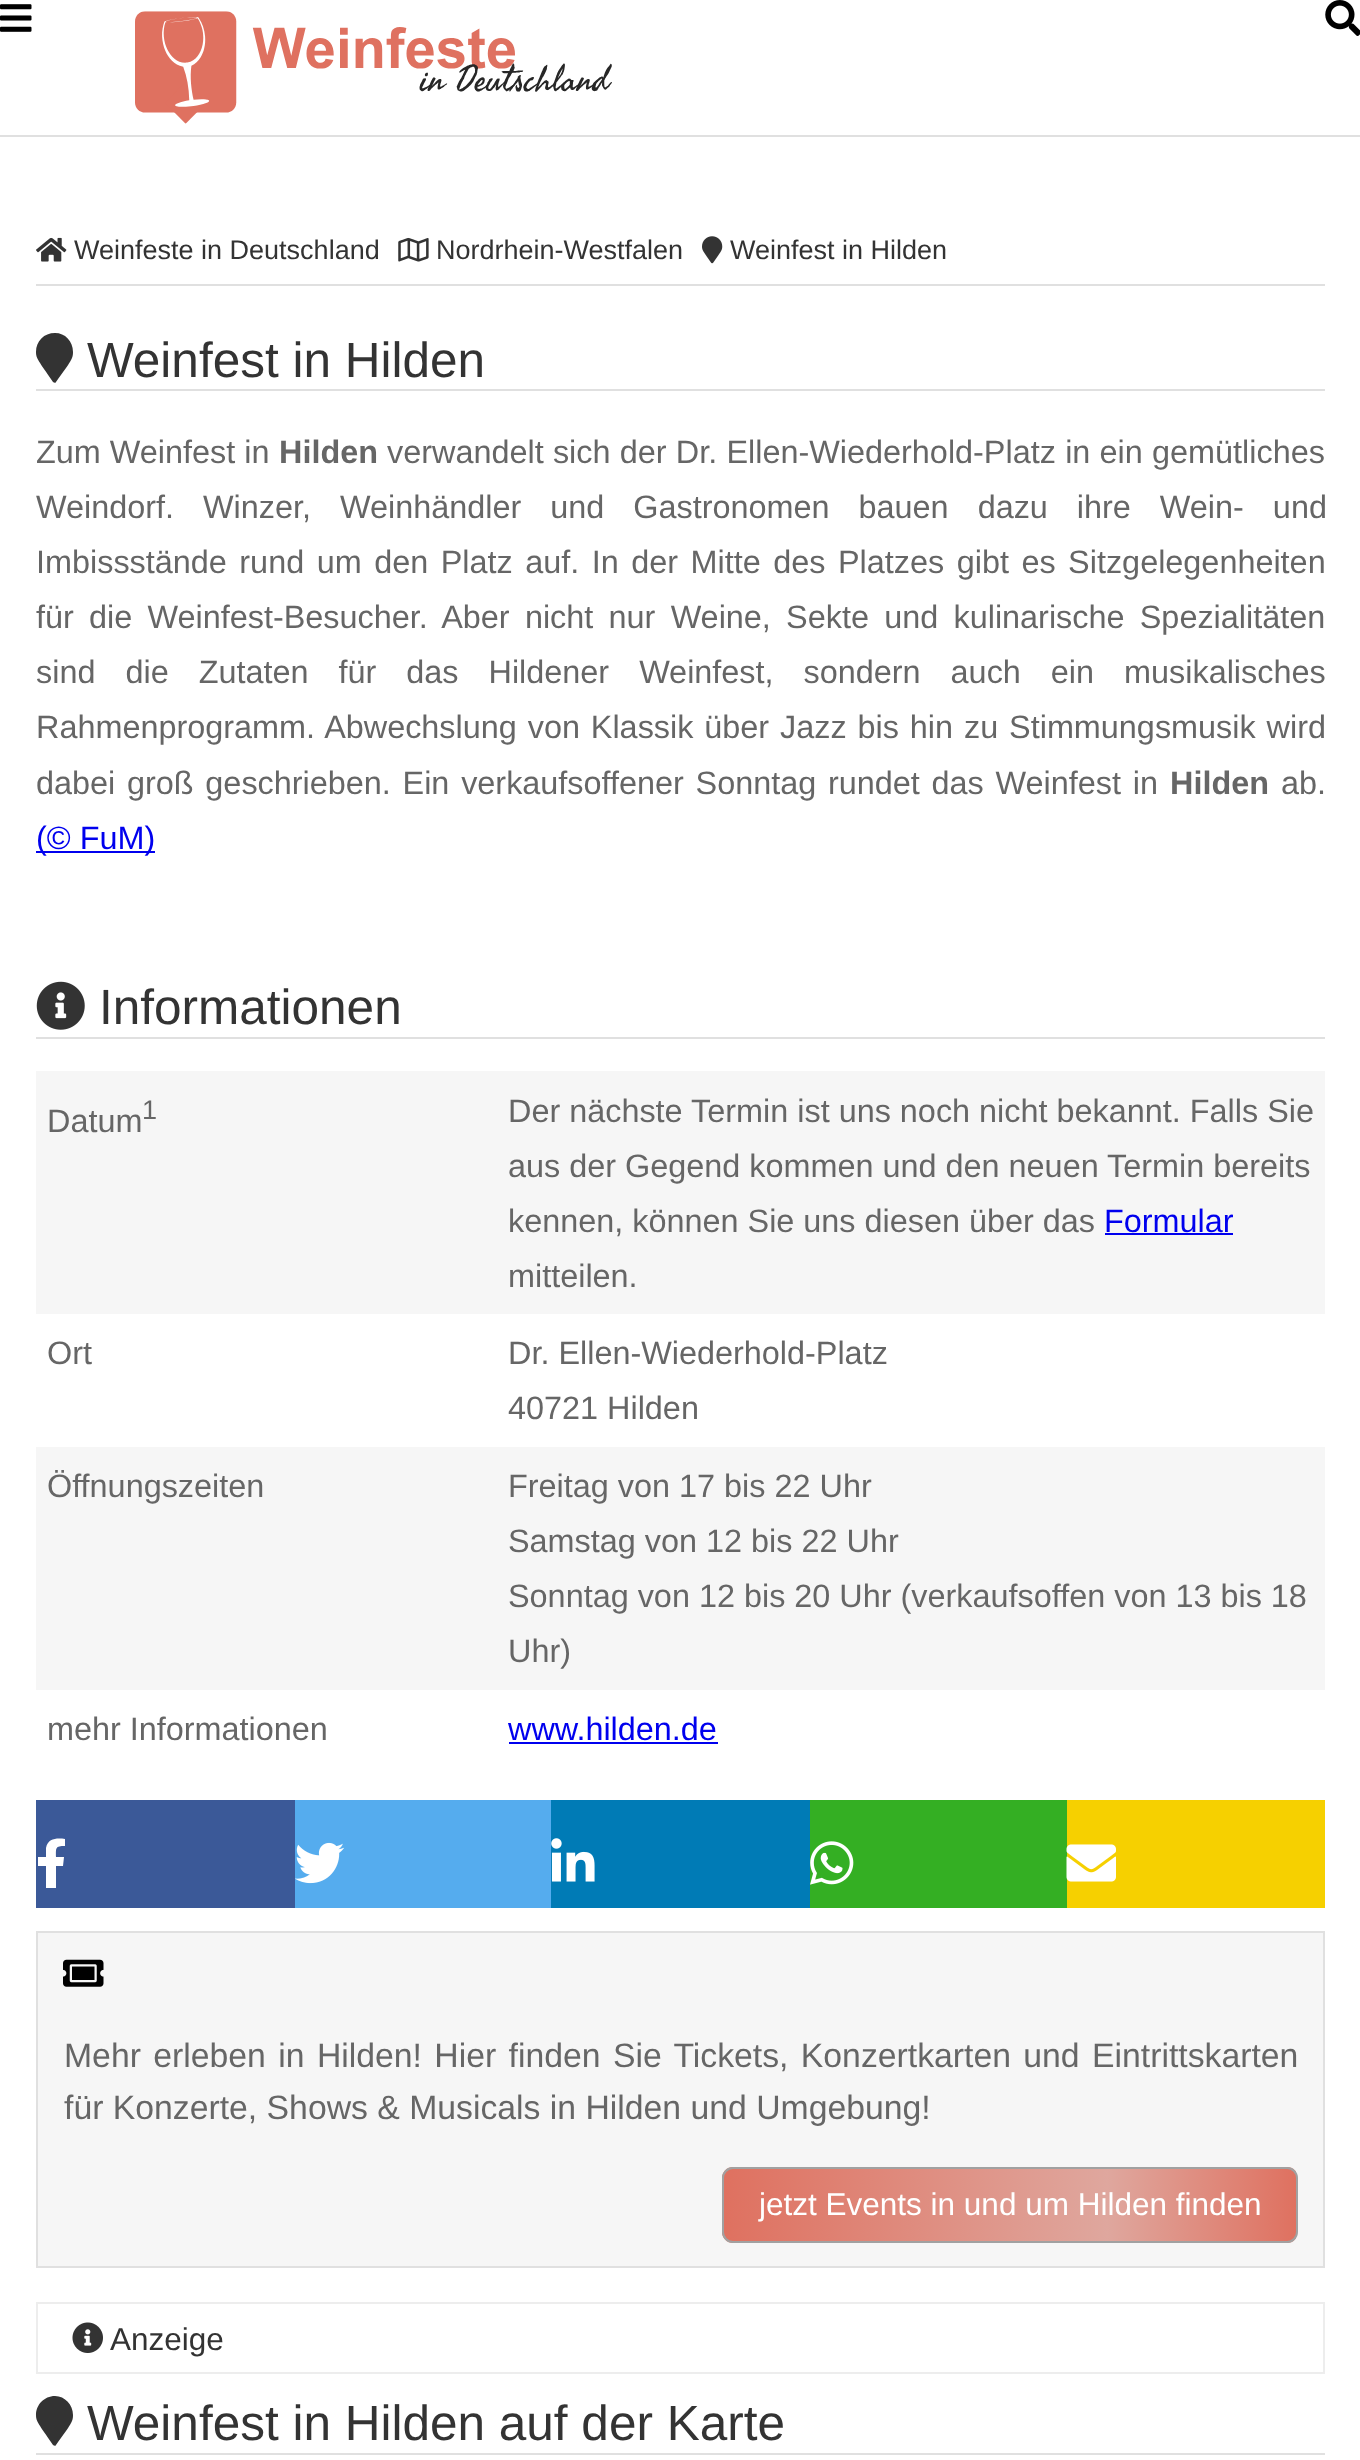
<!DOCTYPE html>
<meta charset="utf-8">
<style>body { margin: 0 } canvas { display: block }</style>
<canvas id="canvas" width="1360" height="2460"></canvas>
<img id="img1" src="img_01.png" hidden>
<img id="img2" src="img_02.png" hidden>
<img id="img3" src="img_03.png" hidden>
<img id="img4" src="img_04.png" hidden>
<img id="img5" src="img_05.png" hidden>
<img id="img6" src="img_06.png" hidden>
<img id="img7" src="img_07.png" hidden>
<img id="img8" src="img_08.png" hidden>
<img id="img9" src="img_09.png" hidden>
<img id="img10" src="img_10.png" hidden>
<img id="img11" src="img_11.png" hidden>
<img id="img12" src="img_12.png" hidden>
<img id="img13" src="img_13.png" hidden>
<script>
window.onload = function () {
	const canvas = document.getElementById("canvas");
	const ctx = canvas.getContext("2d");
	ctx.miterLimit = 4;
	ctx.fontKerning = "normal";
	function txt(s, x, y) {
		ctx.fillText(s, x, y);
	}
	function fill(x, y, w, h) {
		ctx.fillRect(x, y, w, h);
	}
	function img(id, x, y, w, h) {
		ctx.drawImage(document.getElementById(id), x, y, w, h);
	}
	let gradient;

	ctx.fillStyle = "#FFFFFF";
	fill(0, 0, 1360, 2460);
	img("img1", 0, 4, 32, 28);
	img("img2", 135, 11, 477, 113);
	img("img3", 1325, 0, 35, 36);
	ctx.fillStyle = "#E0E0E0";
	fill(0, 135, 1360, 2);
	fill(36, 284, 1289, 2);
	img("img4", 36, 237, 31, 25);
	img("img5", 398, 237, 31, 25);
	img("img6", 702, 236, 21, 28);
	fill(36, 389, 1289, 2);
	ctx.fillStyle = "#333333";
	ctx.beginPath();
	ctx.moveTo(53, 382);
	ctx.bezierCurveTo(39, 361, 36, 359, 36, 352);
	ctx.bezierCurveTo(36, 341, 44, 333, 55, 333);
	ctx.bezierCurveTo(65, 333, 73, 341, 73, 352);
	ctx.bezierCurveTo(73, 359, 71, 361, 56, 382);
	ctx.bezierCurveTo(56, 383, 54, 383, 53, 382);
	ctx.closePath();
	ctx.fill();
	ctx.fillStyle = "#0000EE";
	fill(36, 851, 119, 2);
	ctx.fillStyle = "#E0E0E0";
	fill(36, 1037, 1289, 2);
	img("img7", 36, 981, 49, 49);
	ctx.fillStyle = "#F6F6F6";
	fill(36, 1071, 1289, 243);
	ctx.fillStyle = "#0000EE";
	fill(1105, 1233, 128, 2);
	ctx.fillStyle = "#F6F6F6";
	fill(36, 1447, 1289, 243);
	ctx.fillStyle = "#0000EE";
	fill(509, 1742, 209, 2);
	ctx.fillStyle = "#3B5998";
	fill(36, 1800, 259, 108);
	ctx.fillStyle = "#FFFFFF";
	ctx.beginPath();
	ctx.moveTo(63, 1866);
	ctx.lineTo(64, 1857);
	ctx.lineTo(56, 1857);
	ctx.bezierCurveTo(56, 1848, 55, 1846, 65, 1846);
	ctx.lineTo(65, 1839);
	ctx.bezierCurveTo(57, 1838, 48, 1838, 46, 1848);
	ctx.lineTo(46, 1857);
	ctx.lineTo(38, 1857);
	ctx.lineTo(38, 1866);
	ctx.lineTo(46, 1866);
	ctx.lineTo(46, 1888);
	ctx.lineTo(56, 1888);
	ctx.lineTo(56, 1866);
	ctx.closePath();
	ctx.fill();
	ctx.fillStyle = "#55ACEE";
	fill(295, 1800, 256, 108);
	img("img8", 295, 1842, 50, 42);
	ctx.fillStyle = "#007BB6";
	fill(551, 1800, 259, 108);
	img("img9", 551, 1838, 44, 44);
	ctx.fillStyle = "#34AF23";
	fill(810, 1800, 257, 108);
	img("img10", 810, 1841, 44, 44);
	ctx.fillStyle = "#F6D000";
	fill(1067, 1800, 258, 108);
	img("img11", 1066, 1844, 50, 38);
	ctx.fillStyle = "#F6F6F6";
	ctx.beginPath();
	ctx.rect(37, 1932, 1287, 335);
	ctx.fill();
	ctx.strokeStyle = "#E0E0E0";
	ctx.lineWidth = 2;
	ctx.stroke();
	img("img12", 63, 1959, 41, 28);
	ctx.save();
	ctx.beginPath();
	ctx.roundRect(722, 2167, 576, 76, 11);
	ctx.clip();
	gradient = ctx.createLinearGradient(153, 2205, 725, 2205);
	gradient.addColorStop(0, "#DF7160");
	gradient.addColorStop(0.67, "#DFA79E");
	gradient.addColorStop(1, "#DF7160");
	ctx.fillStyle = gradient;
	fill(722, 2167, 3, 76);
	gradient = ctx.createLinearGradient(725, 2205, 1296, 2205);
	gradient.addColorStop(0, "#DF7160");
	gradient.addColorStop(0.67, "#DFA79E");
	gradient.addColorStop(1, "#DF7160");
	ctx.fillStyle = gradient;
	fill(725, 2167, 571, 76);
	ctx.restore();
	ctx.beginPath();
	ctx.roundRect(723, 2168, 574, 74, 10);
	ctx.strokeStyle = "#A1A1A1";
	ctx.stroke();
	ctx.strokeStyle = "#EDEDED";
	ctx.strokeRect(37, 2303, 1287, 70);
	img("img13", 72, 2322, 31, 31);
	ctx.fillStyle = "#E0E0E0";
	fill(36, 2453, 1289, 2);
	ctx.fillStyle = "#333333";
	ctx.beginPath();
	ctx.moveTo(53, 2445);
	ctx.bezierCurveTo(39, 2424, 36, 2422, 36, 2415);
	ctx.bezierCurveTo(36, 2405, 44, 2396, 55, 2396);
	ctx.bezierCurveTo(65, 2396, 73, 2405, 73, 2415);
	ctx.bezierCurveTo(73, 2422, 71, 2424, 56, 2445);
	ctx.bezierCurveTo(56, 2446, 54, 2446, 53, 2445);
	ctx.closePath();
	ctx.fill();
	ctx.font = "27px Liberation Sans";
	txt("Weinfeste in Deutschland", 74, 259);
	txt("Nordrhein-Westfalen", 436, 259);
	txt("Weinfest in Hilden", 730, 259);
	ctx.font = "49.5px Liberation Sans";
	txt("Weinfest in Hilden", 87, 377);
	ctx.font = "32.4px Liberation Sans";
	ctx.fillStyle = "#666666";
	txt("Zum Weinfest in", 36, 463);
	ctx.font = "bold 32.4px Liberation Sans";
	txt("Hilden", 279, 463);
	ctx.wordSpacing = "0.25px";
	ctx.font = "32.4px Liberation Sans";
	txt("verwandelt sich der Dr. Ellen-Wiederhold-Platz in ein gemütliches", 387, 463);
	ctx.wordSpacing = "20px";
	txt("Weindorf. Winzer, Weinhändler und Gastronomen bauen dazu ihre Wein- und", 36, 518);
	ctx.wordSpacing = "3.5px";
	txt("Imbissstände rund um den Platz auf. In der Mitte des Platzes gibt es Sitzgelegenheiten", 36, 573);
	ctx.wordSpacing = "6.25px";
	txt("für die Weinfest-Besucher. Aber nicht nur Weine, Sekte und kulinarische Spezialitäten", 36, 628);
	ctx.wordSpacing = "21px";
	txt("sind die Zutaten für das Hildener Weinfest, sondern auch ein musikalisches", 36, 683);
	ctx.wordSpacing = "1.9px";
	txt("Rahmenprogramm. Abwechslung von Klassik über Jazz bis hin zu Stimmungsmusik wird", 36, 738);
	ctx.wordSpacing = "2.75px";
	txt("dabei groß geschrieben. Ein verkaufsoffener Sonntag rundet das Weinfest in", 36, 794);
	ctx.wordSpacing = "0px";
	ctx.font = "bold 32.4px Liberation Sans";
	txt("Hilden", 1170, 794);
	ctx.font = "32.4px Liberation Sans";
	txt("ab.", 1281, 794);
	ctx.fillStyle = "#0000EE";
	txt("(© FuM)", 36, 849);
	ctx.font = "49.5px Liberation Sans";
	ctx.fillStyle = "#333333";
	txt("Informationen", 99, 1024);
	ctx.font = "32.4px Liberation Sans";
	ctx.fillStyle = "#666666";
	txt("Datum", 47, 1132);
	ctx.font = "27px Liberation Sans";
	txt("1", 142, 1119);
	ctx.font = "32.4px Liberation Sans";
	txt("Der nächste Termin ist uns noch nicht bekannt. Falls Sie", 508, 1122);
	txt("aus der Gegend kommen und den neuen Termin bereits", 508, 1177);
	txt("kennen, können Sie uns diesen über das", 508, 1232);
	ctx.fillStyle = "#0000EE";
	txt("Formular", 1104, 1232);
	ctx.fillStyle = "#666666";
	txt("mitteilen.", 508, 1287);
	txt("Ort", 47, 1364);
	txt("Dr. Ellen-Wiederhold-Platz", 508, 1364);
	txt("40721 Hilden", 508, 1419);
	txt("Öffnungszeiten", 47, 1497);
	txt("Freitag von 17 bis 22 Uhr", 508, 1497);
	txt("Samstag von 12 bis 22 Uhr", 508, 1552);
	txt("Sonntag von 12 bis 20 Uhr (verkaufsoffen von 13 bis 18", 508, 1607);
	txt("Uhr)", 508, 1662);
	txt("mehr Informationen", 47, 1740);
	ctx.fillStyle = "#0000EE";
	txt("www.hilden.de", 508, 1740);
	ctx.wordSpacing = "3px";
	ctx.font = "33.75px Liberation Sans";
	ctx.fillStyle = "#666666";
	txt("Mehr erleben in Hilden! Hier finden Sie Tickets, Konzertkarten und Eintrittskarten", 64, 2067);
	ctx.wordSpacing = "0px";
	txt("für Konzerte, Shows & Musicals in Hilden und Umgebung!", 64, 2119);
	ctx.font = "31.5px Liberation Sans";
	ctx.fillStyle = "#FFFFFF";
	txt("jetzt Events in und um Hilden finden", 759, 2215);
	ctx.fillStyle = "#333333";
	txt("Anzeige", 110, 2350);
	ctx.font = "49.5px Liberation Sans";
	txt("Weinfest in Hilden auf der Karte", 87, 2440);
};
</script>
